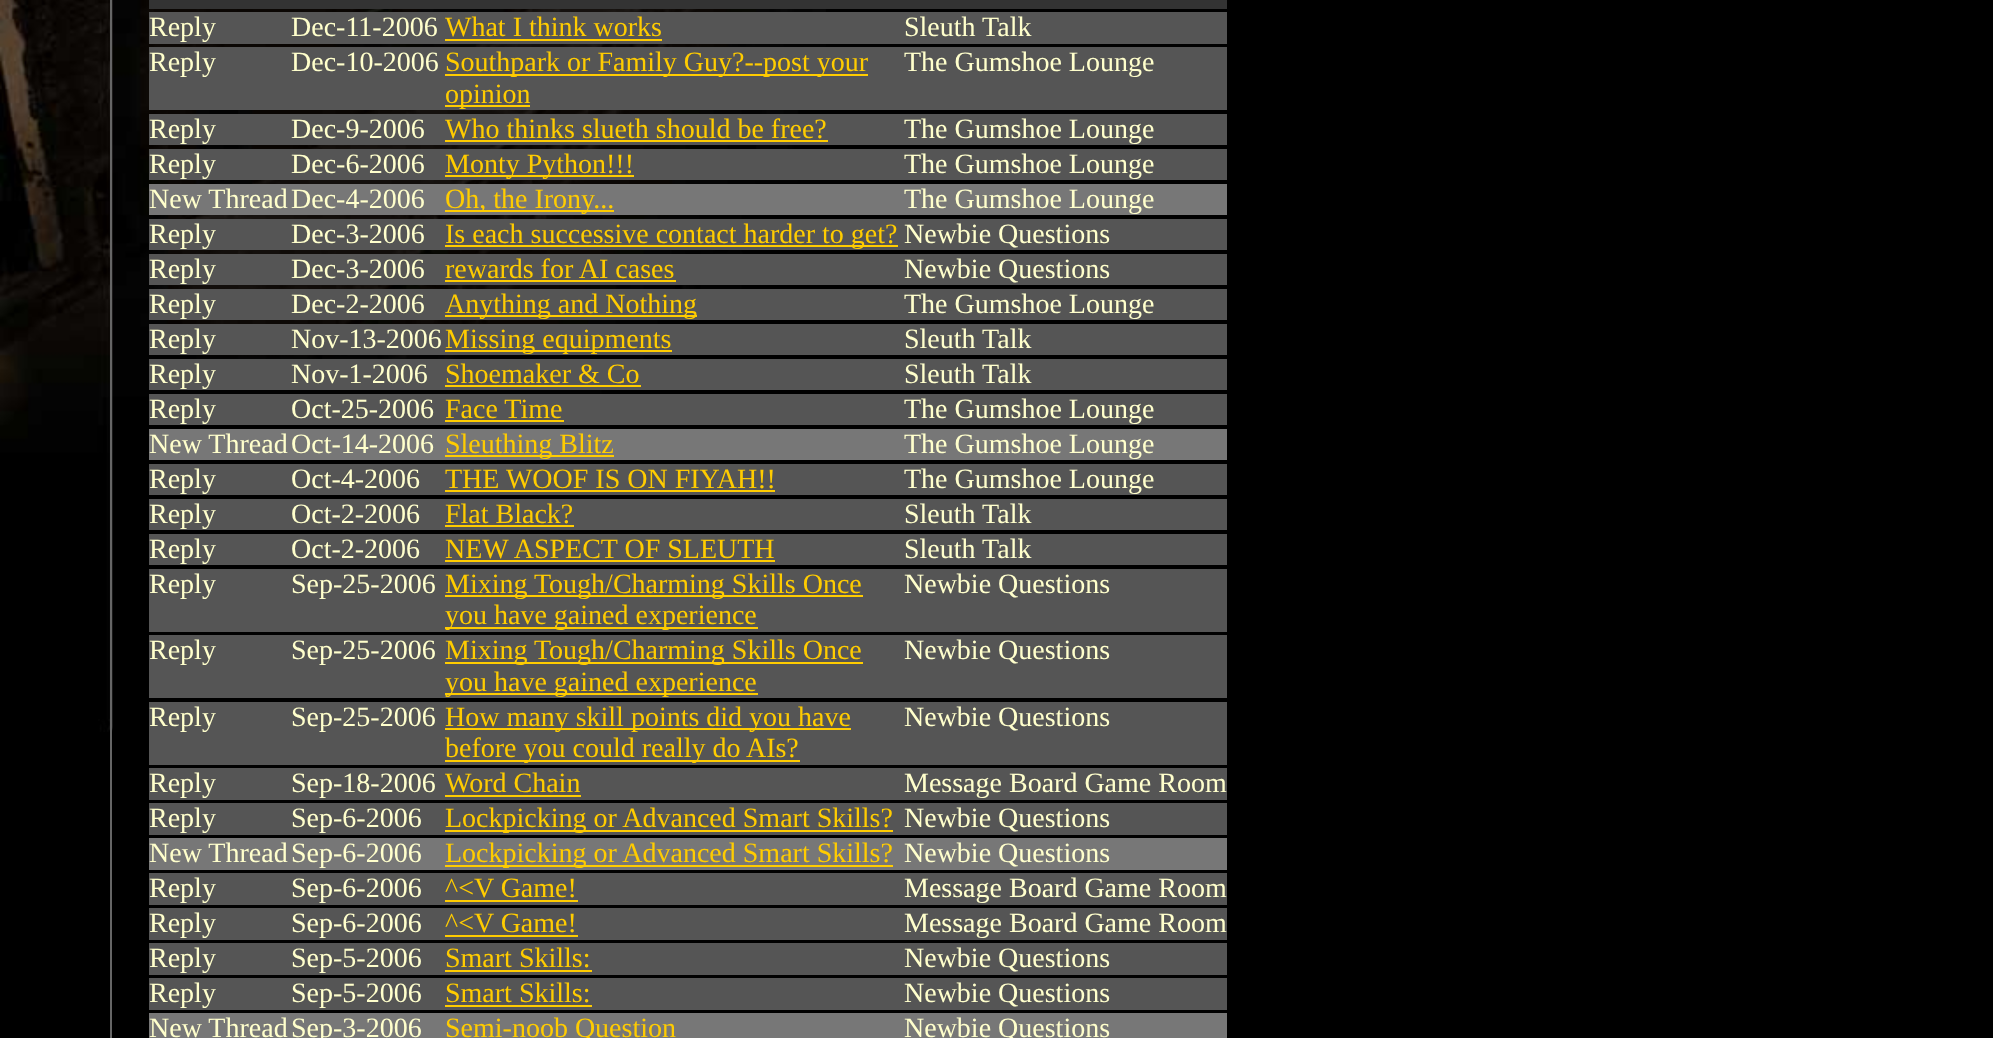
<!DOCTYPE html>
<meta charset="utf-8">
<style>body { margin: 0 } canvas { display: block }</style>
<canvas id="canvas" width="1993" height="1038"></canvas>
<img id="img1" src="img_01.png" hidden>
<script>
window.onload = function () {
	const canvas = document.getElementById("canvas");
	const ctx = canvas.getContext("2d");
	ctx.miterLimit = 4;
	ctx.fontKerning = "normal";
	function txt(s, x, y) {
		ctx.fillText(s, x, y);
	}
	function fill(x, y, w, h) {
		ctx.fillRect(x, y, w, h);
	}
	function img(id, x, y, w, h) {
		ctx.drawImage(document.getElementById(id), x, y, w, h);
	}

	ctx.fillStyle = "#000000";
	fill(0, 0, 1993, 1038);
	img("img1", 0, 0, 826, 732);
	ctx.fillStyle = "#666666";
	fill(110, 0, 2, 1038);
	ctx.fillStyle = "#333333";
	fill(149, 0, 1078, 9);
	ctx.fillStyle = "#555555";
	fill(149, 12, 1078, 32);
	ctx.fillStyle = "#FFCC00";
	fill(445, 39, 217, 2);
	ctx.fillStyle = "#555555";
	fill(149, 47, 1078, 63);
	ctx.fillStyle = "#FFCC00";
	fill(445, 74, 423, 2);
	fill(445, 105, 85, 2);
	ctx.fillStyle = "#555555";
	fill(149, 114, 1078, 31);
	ctx.fillStyle = "#FFCC00";
	fill(445, 140, 383, 2);
	ctx.fillStyle = "#555555";
	fill(149, 149, 1078, 31);
	ctx.fillStyle = "#FFCC00";
	fill(445, 175, 189, 2);
	ctx.fillStyle = "#777777";
	fill(149, 184, 1078, 31);
	ctx.fillStyle = "#FFCC00";
	fill(445, 210, 169, 2);
	ctx.fillStyle = "#555555";
	fill(149, 219, 1078, 31);
	ctx.fillStyle = "#FFCC00";
	fill(445, 245, 453, 2);
	ctx.fillStyle = "#555555";
	fill(149, 254, 1078, 31);
	ctx.fillStyle = "#FFCC00";
	fill(445, 280, 231, 2);
	ctx.fillStyle = "#555555";
	fill(149, 289, 1078, 31);
	ctx.fillStyle = "#FFCC00";
	fill(445, 315, 252, 2);
	ctx.fillStyle = "#555555";
	fill(149, 324, 1078, 31);
	ctx.fillStyle = "#FFCC00";
	fill(445, 350, 227, 2);
	ctx.fillStyle = "#555555";
	fill(149, 359, 1078, 31);
	ctx.fillStyle = "#FFCC00";
	fill(445, 385, 196, 2);
	ctx.fillStyle = "#555555";
	fill(149, 394, 1078, 31);
	ctx.fillStyle = "#FFCC00";
	fill(445, 420, 119, 2);
	ctx.fillStyle = "#777777";
	fill(149, 429, 1078, 31);
	ctx.fillStyle = "#FFCC00";
	fill(445, 455, 169, 2);
	ctx.fillStyle = "#555555";
	fill(149, 464, 1078, 31);
	ctx.fillStyle = "#FFCC00";
	fill(445, 490, 330, 2);
	ctx.fillStyle = "#555555";
	fill(149, 499, 1078, 31);
	ctx.fillStyle = "#FFCC00";
	fill(445, 525, 129, 2);
	ctx.fillStyle = "#555555";
	fill(149, 534, 1078, 31);
	ctx.fillStyle = "#FFCC00";
	fill(445, 560, 330, 2);
	ctx.fillStyle = "#555555";
	fill(149, 569, 1078, 63);
	ctx.fillStyle = "#FFCC00";
	fill(445, 595, 418, 2);
	fill(445, 627, 313, 2);
	ctx.fillStyle = "#555555";
	fill(149, 635, 1078, 63);
	ctx.fillStyle = "#FFCC00";
	fill(445, 662, 418, 2);
	fill(445, 693, 313, 2);
	ctx.fillStyle = "#555555";
	fill(149, 702, 1078, 63);
	ctx.fillStyle = "#FFCC00";
	fill(445, 728, 406, 2);
	fill(445, 760, 355, 2);
	ctx.fillStyle = "#555555";
	fill(149, 768, 1078, 32);
	ctx.fillStyle = "#FFCC00";
	fill(445, 795, 136, 2);
	ctx.fillStyle = "#555555";
	fill(149, 803, 1078, 32);
	ctx.fillStyle = "#FFCC00";
	fill(445, 830, 448, 2);
	ctx.fillStyle = "#777777";
	fill(149, 838, 1078, 32);
	ctx.fillStyle = "#FFCC00";
	fill(445, 865, 448, 2);
	ctx.fillStyle = "#555555";
	fill(149, 873, 1078, 32);
	ctx.fillStyle = "#FFCC00";
	fill(445, 900, 133, 2);
	ctx.fillStyle = "#555555";
	fill(149, 908, 1078, 32);
	ctx.fillStyle = "#FFCC00";
	fill(445, 935, 133, 2);
	ctx.fillStyle = "#555555";
	fill(149, 943, 1078, 32);
	ctx.fillStyle = "#FFCC00";
	fill(445, 970, 147, 2);
	ctx.fillStyle = "#555555";
	fill(149, 978, 1078, 32);
	ctx.fillStyle = "#FFCC00";
	fill(445, 1005, 147, 2);
	ctx.fillStyle = "#777777";
	fill(149, 1013, 1078, 25);
	ctx.font = "28px Liberation Serif";
	ctx.fillStyle = "#FFFFCC";
	txt("Reply", 149, 36);
	txt("Dec-11-2006", 291, 36);
	ctx.fillStyle = "#FFCC00";
	txt("What I think works", 445, 36);
	ctx.fillStyle = "#FFFFCC";
	txt("Sleuth Talk", 904, 36);
	txt("Reply", 149, 71);
	txt("Dec-10-2006", 291, 71);
	ctx.fillStyle = "#FFCC00";
	txt("Southpark or Family Guy?--post your", 445, 71);
	txt("opinion", 445, 103);
	ctx.fillStyle = "#FFFFCC";
	txt("The Gumshoe Lounge", 904, 71);
	txt("Reply", 149, 138);
	txt("Dec-9-2006", 291, 138);
	ctx.fillStyle = "#FFCC00";
	txt("Who thinks slueth should be free?", 445, 138);
	ctx.fillStyle = "#FFFFCC";
	txt("The Gumshoe Lounge", 904, 138);
	txt("Reply", 149, 173);
	txt("Dec-6-2006", 291, 173);
	ctx.fillStyle = "#FFCC00";
	txt("Monty Python!!!", 445, 173);
	ctx.fillStyle = "#FFFFCC";
	txt("The Gumshoe Lounge", 904, 173);
	txt("New Thread", 149, 208);
	txt("Dec-4-2006", 291, 208);
	ctx.fillStyle = "#FFCC00";
	txt("Oh, the Irony...", 445, 208);
	ctx.fillStyle = "#FFFFCC";
	txt("The Gumshoe Lounge", 904, 208);
	txt("Reply", 149, 243);
	txt("Dec-3-2006", 291, 243);
	ctx.fillStyle = "#FFCC00";
	txt("Is each successive contact harder to get?", 445, 243);
	ctx.fillStyle = "#FFFFCC";
	txt("Newbie Questions", 904, 243);
	txt("Reply", 149, 278);
	txt("Dec-3-2006", 291, 278);
	ctx.fillStyle = "#FFCC00";
	txt("rewards for AI cases", 445, 278);
	ctx.fillStyle = "#FFFFCC";
	txt("Newbie Questions", 904, 278);
	txt("Reply", 149, 313);
	txt("Dec-2-2006", 291, 313);
	ctx.fillStyle = "#FFCC00";
	txt("Anything and Nothing", 445, 313);
	ctx.fillStyle = "#FFFFCC";
	txt("The Gumshoe Lounge", 904, 313);
	txt("Reply", 149, 348);
	txt("Nov-13-2006", 291, 348);
	ctx.fillStyle = "#FFCC00";
	txt("Missing equipments", 445, 348);
	ctx.fillStyle = "#FFFFCC";
	txt("Sleuth Talk", 904, 348);
	txt("Reply", 149, 383);
	txt("Nov-1-2006", 291, 383);
	ctx.fillStyle = "#FFCC00";
	txt("Shoemaker & Co", 445, 383);
	ctx.fillStyle = "#FFFFCC";
	txt("Sleuth Talk", 904, 383);
	txt("Reply", 149, 418);
	txt("Oct-25-2006", 291, 418);
	ctx.fillStyle = "#FFCC00";
	txt("Face Time", 445, 418);
	ctx.fillStyle = "#FFFFCC";
	txt("The Gumshoe Lounge", 904, 418);
	txt("New Thread", 149, 453);
	txt("Oct-14-2006", 291, 453);
	ctx.fillStyle = "#FFCC00";
	txt("Sleuthing Blitz", 445, 453);
	ctx.fillStyle = "#FFFFCC";
	txt("The Gumshoe Lounge", 904, 453);
	txt("Reply", 149, 488);
	txt("Oct-4-2006", 291, 488);
	ctx.fillStyle = "#FFCC00";
	txt("THE WOOF IS ON FIYAH!!", 445, 488);
	ctx.fillStyle = "#FFFFCC";
	txt("The Gumshoe Lounge", 904, 488);
	txt("Reply", 149, 523);
	txt("Oct-2-2006", 291, 523);
	ctx.fillStyle = "#FFCC00";
	txt("Flat Black?", 445, 523);
	ctx.fillStyle = "#FFFFCC";
	txt("Sleuth Talk", 904, 523);
	txt("Reply", 149, 558);
	txt("Oct-2-2006", 291, 558);
	ctx.fillStyle = "#FFCC00";
	txt("NEW ASPECT OF SLEUTH", 445, 558);
	ctx.fillStyle = "#FFFFCC";
	txt("Sleuth Talk", 904, 558);
	txt("Reply", 149, 593);
	txt("Sep-25-2006", 291, 593);
	ctx.fillStyle = "#FFCC00";
	txt("Mixing Tough/Charming Skills Once", 445, 593);
	txt("you have gained experience", 445, 624);
	ctx.fillStyle = "#FFFFCC";
	txt("Newbie Questions", 904, 593);
	txt("Reply", 149, 659);
	txt("Sep-25-2006", 291, 659);
	ctx.fillStyle = "#FFCC00";
	txt("Mixing Tough/Charming Skills Once", 445, 659);
	txt("you have gained experience", 445, 691);
	ctx.fillStyle = "#FFFFCC";
	txt("Newbie Questions", 904, 659);
	txt("Reply", 149, 726);
	txt("Sep-25-2006", 291, 726);
	ctx.fillStyle = "#FFCC00";
	txt("How many skill points did you have", 445, 726);
	txt("before you could really do AIs?", 445, 757);
	ctx.fillStyle = "#FFFFCC";
	txt("Newbie Questions", 904, 726);
	txt("Reply", 149, 792);
	txt("Sep-18-2006", 291, 792);
	ctx.fillStyle = "#FFCC00";
	txt("Word Chain", 445, 792);
	ctx.fillStyle = "#FFFFCC";
	txt("Message Board Game Room", 904, 792);
	txt("Reply", 149, 827);
	txt("Sep-6-2006", 291, 827);
	ctx.fillStyle = "#FFCC00";
	txt("Lockpicking or Advanced Smart Skills?", 445, 827);
	ctx.fillStyle = "#FFFFCC";
	txt("Newbie Questions", 904, 827);
	txt("New Thread", 149, 862);
	txt("Sep-6-2006", 291, 862);
	ctx.fillStyle = "#FFCC00";
	txt("Lockpicking or Advanced Smart Skills?", 445, 862);
	ctx.fillStyle = "#FFFFCC";
	txt("Newbie Questions", 904, 862);
	txt("Reply", 149, 897);
	txt("Sep-6-2006", 291, 897);
	ctx.fillStyle = "#FFCC00";
	txt("^<V Game!", 445, 897);
	ctx.fillStyle = "#FFFFCC";
	txt("Message Board Game Room", 904, 897);
	txt("Reply", 149, 932);
	txt("Sep-6-2006", 291, 932);
	ctx.fillStyle = "#FFCC00";
	txt("^<V Game!", 445, 932);
	ctx.fillStyle = "#FFFFCC";
	txt("Message Board Game Room", 904, 932);
	txt("Reply", 149, 967);
	txt("Sep-5-2006", 291, 967);
	ctx.fillStyle = "#FFCC00";
	txt("Smart Skills:", 445, 967);
	ctx.fillStyle = "#FFFFCC";
	txt("Newbie Questions", 904, 967);
	txt("Reply", 149, 1002);
	txt("Sep-5-2006", 291, 1002);
	ctx.fillStyle = "#FFCC00";
	txt("Smart Skills:", 445, 1002);
	ctx.fillStyle = "#FFFFCC";
	txt("Newbie Questions", 904, 1002);
	txt("New Thread", 149, 1037);
	txt("Sep-3-2006", 291, 1037);
	ctx.fillStyle = "#FFCC00";
	txt("Semi-noob Question", 445, 1037);
	ctx.fillStyle = "#FFFFCC";
	txt("Newbie Questions", 904, 1037);
};
</script>
